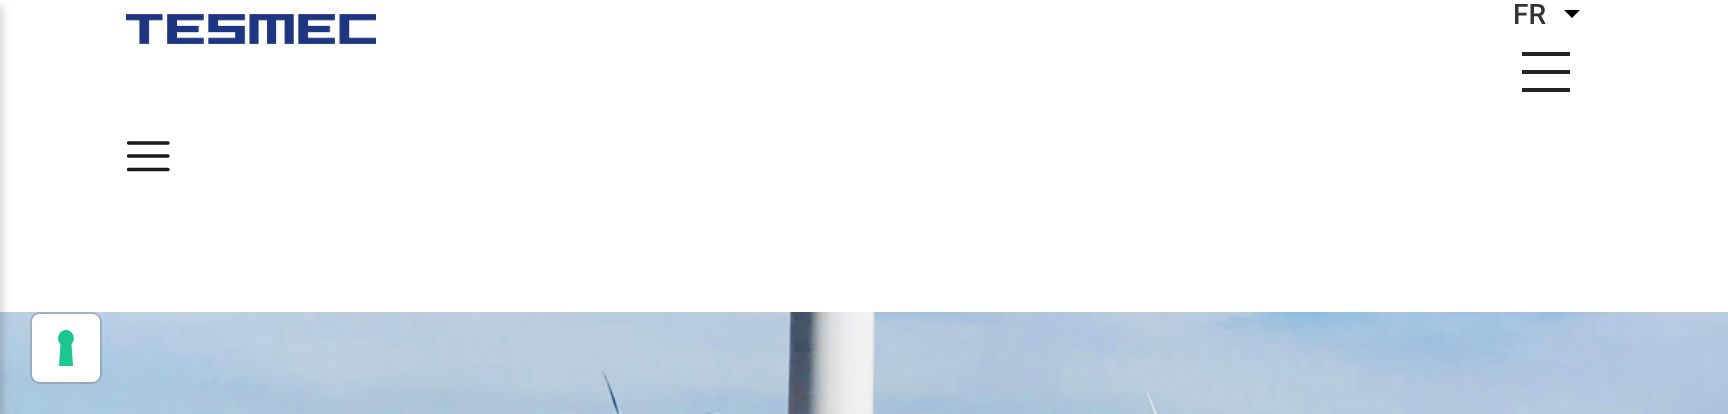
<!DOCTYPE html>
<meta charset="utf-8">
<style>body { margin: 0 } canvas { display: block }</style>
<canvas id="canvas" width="1728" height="414"></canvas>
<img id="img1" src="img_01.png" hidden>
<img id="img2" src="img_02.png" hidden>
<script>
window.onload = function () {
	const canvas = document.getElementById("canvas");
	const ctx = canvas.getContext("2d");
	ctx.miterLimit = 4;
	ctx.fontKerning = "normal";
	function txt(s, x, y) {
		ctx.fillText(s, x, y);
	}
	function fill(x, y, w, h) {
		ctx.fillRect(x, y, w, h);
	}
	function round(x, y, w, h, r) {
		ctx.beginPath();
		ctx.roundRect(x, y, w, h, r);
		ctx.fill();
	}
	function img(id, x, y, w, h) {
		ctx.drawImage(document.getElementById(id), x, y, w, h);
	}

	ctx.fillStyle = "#FFFFFF";
	fill(0, 0, 1728, 414);
	img("img1", 126, 14, 250, 30);
	img("img2", 0, 312, 1728, 102);
	ctx.fillStyle = "rgba(0, 0, 0, 0.2)";
	ctx.filter = "blur(4px)";
	ctx.beginPath();
	ctx.rect(-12, 6, 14, 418);
	ctx.fill();
	ctx.filter = "none";
	ctx.fillStyle = "#000000";
	ctx.beginPath();
	ctx.moveTo(1564, 10);
	ctx.lineTo(1580, 10);
	ctx.lineTo(1572, 18);
	ctx.closePath();
	ctx.fill();
	ctx.fillStyle = "#222222";
	fill(1522, 52, 48, 4);
	fill(1522, 70, 48, 4);
	fill(1522, 88, 48, 4);
	ctx.beginPath();
	ctx.moveTo(128.5, 143);
	ctx.lineTo(168, 143);
	ctx.moveTo(128.5, 156);
	ctx.lineTo(168, 156);
	ctx.moveTo(128.5, 169.5);
	ctx.lineTo(168, 169.5);
	ctx.strokeStyle = "#1A1A1A";
	ctx.lineWidth = 3.3;
	ctx.lineCap = "round";
	ctx.stroke();
	ctx.beginPath();
	ctx.roundRect(31, 313, 70, 70, 9);
	ctx.strokeStyle = "rgba(0, 0, 0, 0.15)";
	ctx.lineWidth = 2;
	ctx.stroke();
	ctx.fillStyle = "#FFFFFF";
	round(32, 314, 68, 68, 8);
	ctx.fillStyle = "#1CC691";
	ctx.beginPath();
	ctx.moveTo(66, 330);
	ctx.bezierCurveTo(73, 330, 76.5, 339.5, 71.5, 344);
	ctx.lineTo(73, 366);
	ctx.lineTo(59, 366);
	ctx.lineTo(60.5, 344);
	ctx.bezierCurveTo(55.5, 339.5, 59, 330, 66, 330);
	ctx.closePath();
	ctx.fill("evenodd");
	ctx.font = "500 28px Roboto";
	ctx.fillStyle = "#333333";
	txt("FR", 1513, 24);
};
</script>
